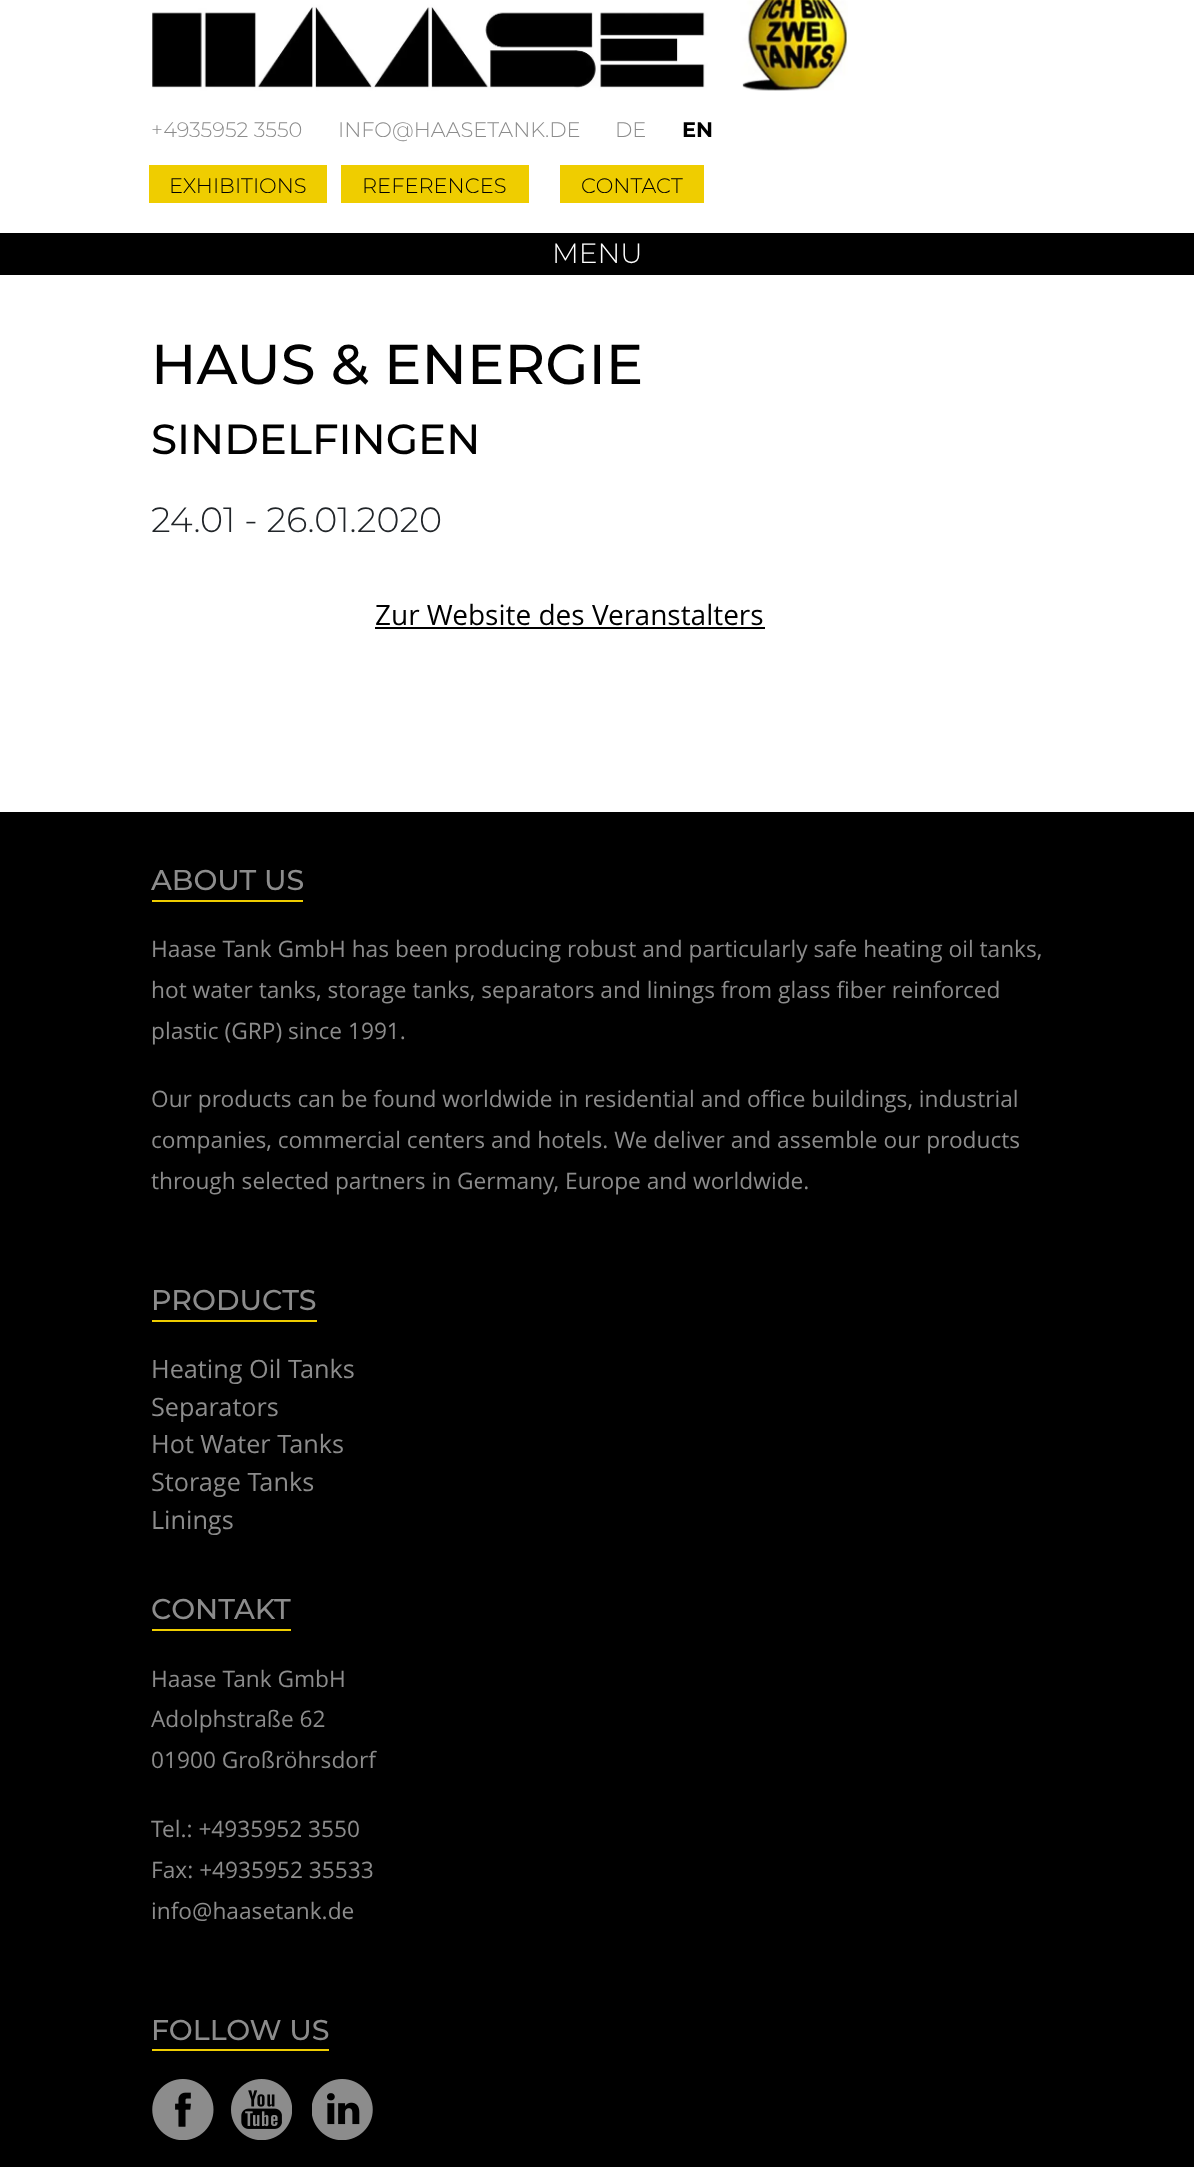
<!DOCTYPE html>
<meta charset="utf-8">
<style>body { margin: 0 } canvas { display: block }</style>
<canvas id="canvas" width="1194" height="2167"></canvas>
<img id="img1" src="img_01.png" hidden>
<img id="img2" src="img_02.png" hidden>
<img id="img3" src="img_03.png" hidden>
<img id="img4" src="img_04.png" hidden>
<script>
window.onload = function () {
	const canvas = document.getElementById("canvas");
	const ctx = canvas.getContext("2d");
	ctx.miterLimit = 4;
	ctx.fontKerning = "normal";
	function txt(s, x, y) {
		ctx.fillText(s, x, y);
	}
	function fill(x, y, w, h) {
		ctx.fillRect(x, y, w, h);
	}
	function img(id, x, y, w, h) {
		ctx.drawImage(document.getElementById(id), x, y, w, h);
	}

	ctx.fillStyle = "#FFFFFF";
	fill(0, 0, 1194, 2167);
	img("img1", 152, 0, 696, 91);
	ctx.fillStyle = "#EFCD00";
	fill(149, 165, 178, 38);
	fill(341, 165, 188, 38);
	fill(560, 165, 144, 38);
	ctx.fillStyle = "#000000";
	fill(0, 233, 1194, 42);
	fill(375, 627, 390, 2);
	fill(0, 812, 1194, 1355);
	ctx.fillStyle = "#EFCD00";
	fill(152, 900, 151, 2);
	fill(152, 1320, 165, 2);
	fill(152, 1629, 139, 2);
	fill(152, 2049, 177, 2);
	img("img2", 152, 2079, 62, 61);
	img("img3", 231, 2079, 61, 61);
	img("img4", 312, 2079, 61, 61);
	ctx.font = "300 21px Montserrat";
	ctx.fillStyle = "#8C8C8C";
	txt("+4935952 3550", 151, 137);
	txt("INFO@HAASETANK.DE", 338, 137);
	txt("DE", 615, 137);
	ctx.font = "bold 21px Montserrat";
	ctx.fillStyle = "#000000";
	txt("EN", 682, 137);
	ctx.font = "300 21px Montserrat";
	txt("EXHIBITIONS", 169, 193);
	txt("REFERENCES", 362, 193);
	txt("CONTACT", 581, 193);
	ctx.font = "300 28px Montserrat";
	ctx.fillStyle = "#FFFFFF";
	txt("MENU", 552, 263);
	ctx.font = "500 56px Montserrat";
	ctx.fillStyle = "#000000";
	txt("HAUS & ENERGIE", 151, 384);
	ctx.font = "500 42px Montserrat";
	txt("SINDELFINGEN", 151, 454);
	ctx.font = "300 35px Montserrat";
	ctx.fillStyle = "#212529";
	txt("24.01 - 26.01.2020", 151, 532);
	ctx.font = "28px Open Sans";
	ctx.fillStyle = "#000000";
	txt("Zur Website des Veranstalters", 375, 625);
	ctx.font = "500 28.5px Montserrat";
	ctx.fillStyle = "#8C8C8C";
	txt("ABOUT US", 151, 890);
	ctx.font = "22.7px Open Sans";
	txt("Haase Tank GmbH has been producing robust and particularly safe heating oil tanks,", 151, 957);
	txt("hot water tanks, storage tanks, separators and linings from glass fiber reinforced", 151, 998);
	txt("plastic (GRP) since 1991.", 151, 1039);
	txt("Our products can be found worldwide in residential and office buildings, industrial", 151, 1107);
	txt("companies, commercial centers and hotels. We deliver and assemble our products", 151, 1148);
	txt("through selected partners in Germany, Europe and worldwide.", 151, 1189);
	ctx.font = "500 28.5px Montserrat";
	txt("PRODUCTS", 151, 1310);
	ctx.font = "25.25px Open Sans";
	txt("Heating Oil Tanks", 151, 1378);
	txt("Separators", 151, 1416);
	txt("Hot Water Tanks", 151, 1453);
	txt("Storage Tanks", 151, 1491);
	txt("Linings", 151, 1529);
	ctx.font = "500 28.5px Montserrat";
	txt("CONTAKT", 151, 1619);
	ctx.font = "22.7px Open Sans";
	txt("Haase Tank GmbH", 151, 1687);
	txt("Adolphstraße 62", 151, 1727);
	txt("01900 Großröhrsdorf", 151, 1768);
	txt("Tel.: +4935952 3550", 151, 1837);
	txt("Fax: +4935952 35533", 151, 1878);
	txt("info@haasetank.de", 151, 1919);
	ctx.font = "500 28.5px Montserrat";
	txt("FOLLOW US", 151, 2040);
};
</script>
